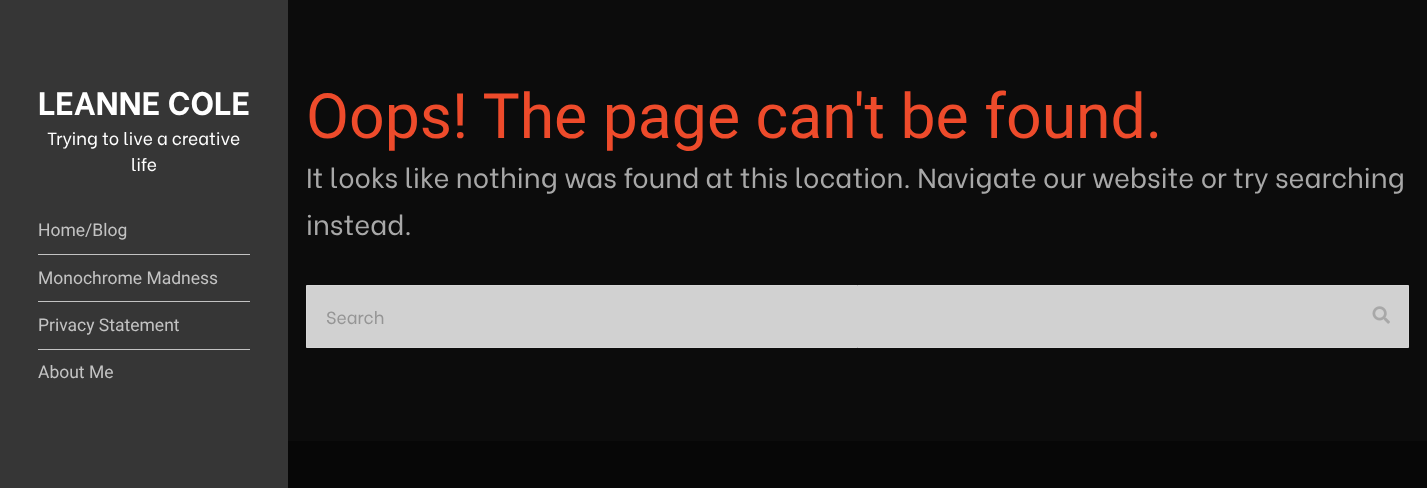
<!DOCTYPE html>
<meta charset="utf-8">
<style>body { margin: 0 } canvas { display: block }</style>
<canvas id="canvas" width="1427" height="488"></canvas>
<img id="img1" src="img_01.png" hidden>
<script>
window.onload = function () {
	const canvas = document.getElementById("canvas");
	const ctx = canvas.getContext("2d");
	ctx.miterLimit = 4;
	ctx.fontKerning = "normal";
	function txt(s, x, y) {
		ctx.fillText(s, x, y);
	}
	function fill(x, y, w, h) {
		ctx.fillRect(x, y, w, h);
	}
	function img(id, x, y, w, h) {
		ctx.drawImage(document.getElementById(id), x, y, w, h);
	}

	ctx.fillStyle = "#0C0C0C";
	fill(0, 0, 1427, 488);
	ctx.fillStyle = "#363636";
	fill(0, 0, 288, 488);
	ctx.fillStyle = "#C3C3C3";
	fill(38, 254, 212, 1);
	fill(38, 301, 212, 1);
	fill(38, 349, 212, 1);
	ctx.fillStyle = "#D1D1D1";
	ctx.beginPath();
	ctx.rect(306.5, 285.5, 1102, 62);
	ctx.fill();
	ctx.strokeStyle = "#D7D7D7";
	ctx.stroke();
	img("img1", 1372, 306, 18, 18);
	ctx.fillStyle = "#070707";
	fill(288, 441, 1139, 47);
	ctx.font = "bold 32.5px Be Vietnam";
	ctx.fillStyle = "#FFFFFF";
	txt("LEANNE COLE", 38, 115);
	ctx.font = "17.5px Be Vietnam";
	txt("Trying to live a creative", 47, 145);
	txt("life", 131, 171);
	ctx.font = "17.5px Roboto";
	ctx.fillStyle = "#C3C3C3";
	txt("Home/Blog", 38, 236);
	txt("Monochrome Madness", 38, 284);
	txt("Privacy Statement", 38, 331);
	txt("About Me", 38, 378);
	ctx.font = "62.5px Roboto";
	ctx.fillStyle = "#EE4B2B";
	txt("Oops! The page can't be found.", 306, 138);
	ctx.font = "27.5px Be Vietnam";
	ctx.fillStyle = "#A8A8A8";
	txt("It looks like nothing was found at this location. Navigate our website or try searching", 306, 188);
	txt("instead.", 306, 235);
	ctx.font = "17.5px Be Vietnam";
	ctx.fillStyle = "#959595";
	txt("Search", 326, 324);
};
</script>
